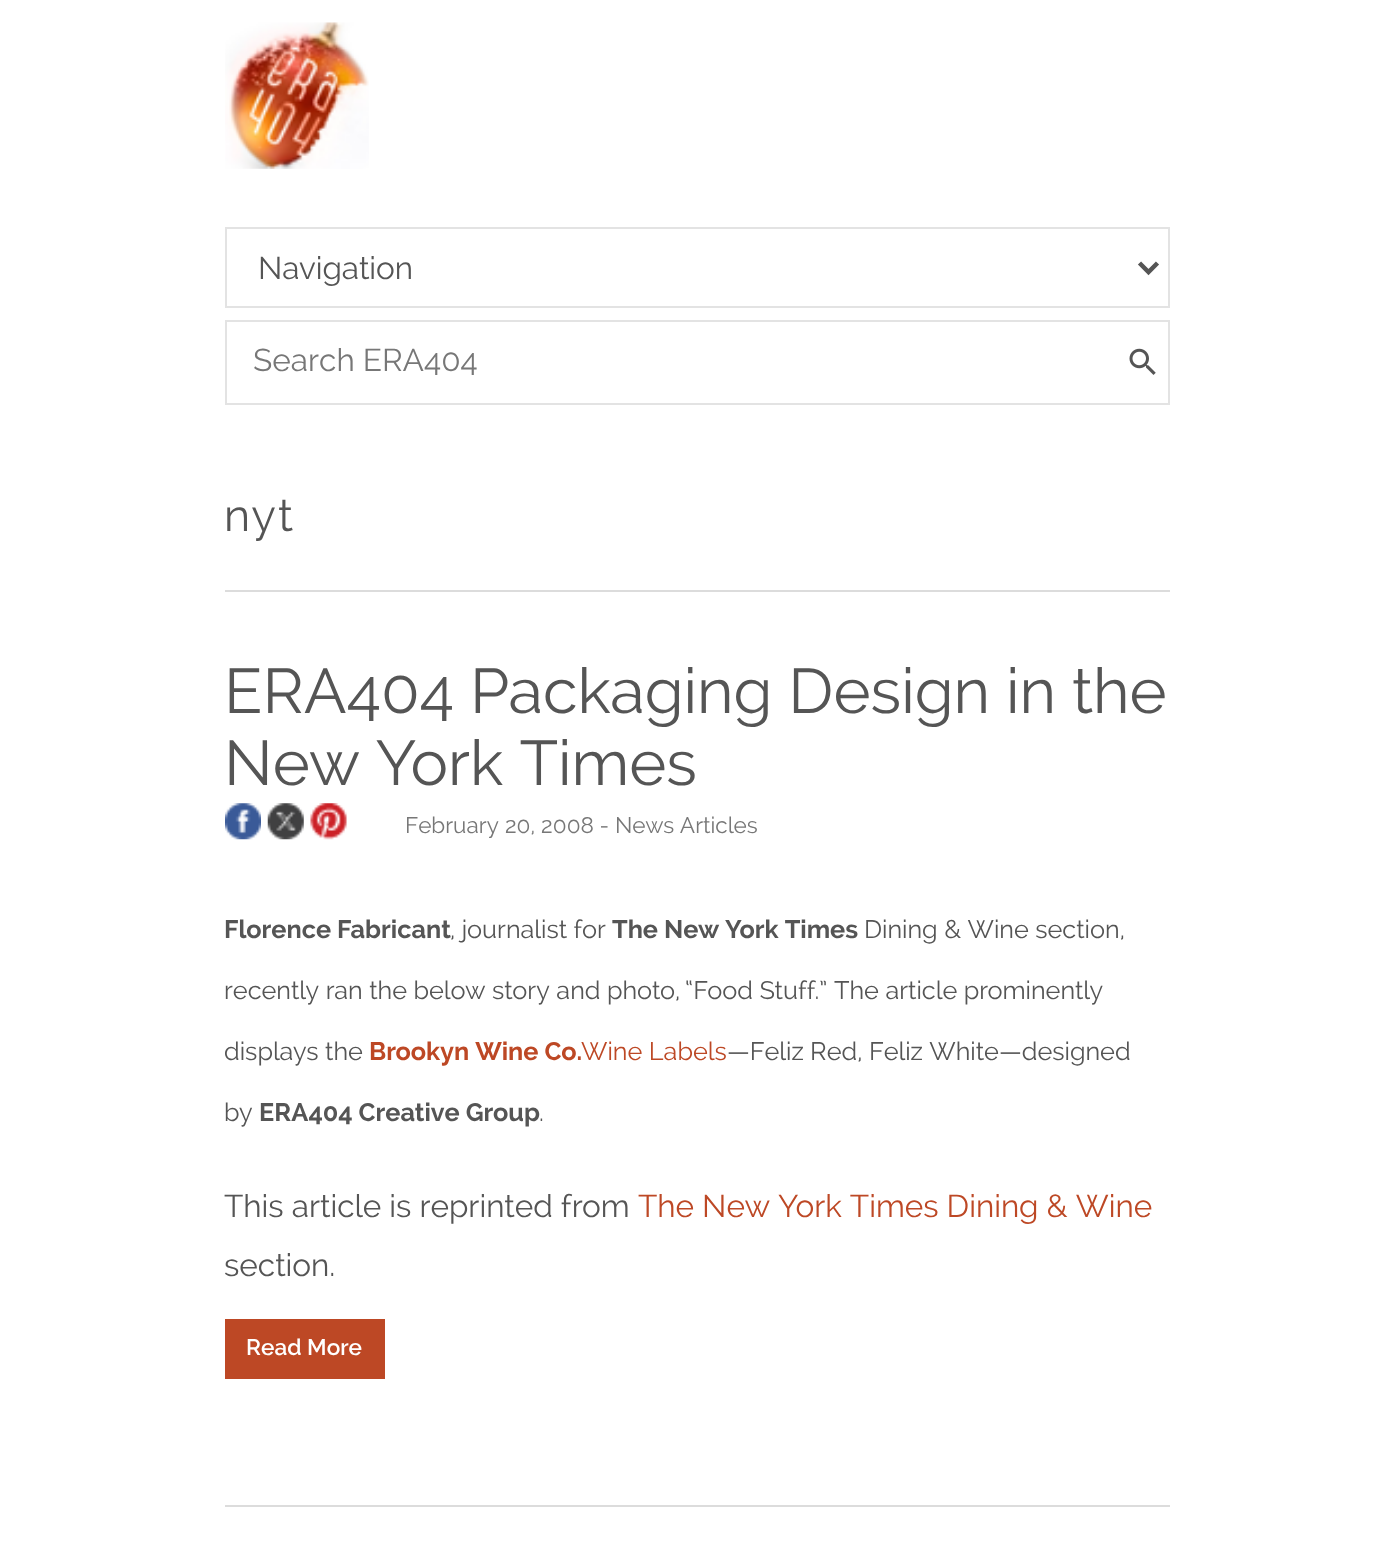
<!DOCTYPE html>
<meta charset="utf-8">
<style>body { margin: 0 } canvas { display: block }</style>
<canvas id="canvas" width="1392" height="1554"></canvas>
<img id="img1" src="img_01.png" hidden>
<img id="img2" src="img_02.png" hidden>
<img id="img3" src="img_03.png" hidden>
<img id="img4" src="img_04.png" hidden>
<img id="img5" src="img_05.png" hidden>
<script>
window.onload = function () {
	const canvas = document.getElementById("canvas");
	const ctx = canvas.getContext("2d");
	ctx.miterLimit = 4;
	ctx.fontKerning = "normal";
	function txt(s, x, y) {
		ctx.fillText(s, x, y);
	}
	function fill(x, y, w, h) {
		ctx.fillRect(x, y, w, h);
	}
	function img(id, x, y, w, h) {
		ctx.drawImage(document.getElementById(id), x, y, w, h);
	}

	ctx.fillStyle = "#FFFFFF";
	fill(0, 0, 1392, 1554);
	img("img1", 225, 22, 144, 147);
	ctx.strokeStyle = "#E3E3E3";
	ctx.lineWidth = 2;
	ctx.strokeRect(226, 228, 943, 79);
	ctx.beginPath();
	ctx.moveTo(1139.5, 263);
	ctx.lineTo(1148.5, 272);
	ctx.lineTo(1157.5, 263);
	ctx.strokeStyle = "#555555";
	ctx.lineWidth = 4.5;
	ctx.stroke();
	ctx.strokeStyle = "#E3E3E3";
	ctx.lineWidth = 2;
	ctx.strokeRect(226, 321, 943, 83);
	img("img2", 1129, 348, 27, 27);
	ctx.fillStyle = "#DCDCDC";
	fill(225, 590, 945, 2);
	img("img3", 225, 803, 36, 37);
	img("img4", 267, 803, 37, 37);
	img("img5", 310, 803, 37, 37);
	ctx.fillStyle = "#BD4825";
	fill(225, 1319, 160, 60);
	ctx.fillStyle = "#DCDCDC";
	fill(225, 1505, 945, 2);
	ctx.font = "31.5px Raleway";
	ctx.fillStyle = "#555555";
	txt("Navigation", 258, 279);
	ctx.fillStyle = "#777777";
	txt("Search ERA404", 253, 371);
	ctx.letterSpacing = "2px";
	ctx.font = "45px Raleway";
	ctx.fillStyle = "#555555";
	txt("nyt", 224, 531);
	ctx.letterSpacing = "0px";
	ctx.font = "63px Raleway";
	txt("ERA404 Packaging Design in the", 224, 713);
	txt("New York Times", 224, 785);
	ctx.font = "22.5px Raleway";
	ctx.fillStyle = "#777777";
	txt("February 20, 2008 - News Articles", 405, 833);
	ctx.font = "bold 25.25px Raleway";
	ctx.fillStyle = "#555555";
	txt("Florence Fabricant", 224, 938);
	ctx.font = "25.25px Raleway";
	txt(", journalist for", 450, 938);
	ctx.font = "bold 25.25px Raleway";
	txt("The New York Times", 612, 938);
	ctx.font = "25.25px Raleway";
	txt("Dining & Wine section,", 864, 938);
	txt("recently ran the below story and photo,", 224, 999);
	txt("“Food Stuff.” The article prominently", 685, 999);
	txt("displays the", 224, 1060);
	ctx.font = "bold 25.25px Raleway";
	ctx.fillStyle = "#BD4825";
	txt("Brookyn Wine Co.", 369, 1060);
	ctx.font = "25.25px Raleway";
	txt("Wine Labels", 581, 1060);
	ctx.fillStyle = "#555555";
	txt("—Feliz Red, Feliz White—designed", 727, 1060);
	txt("by", 224, 1121);
	ctx.font = "bold 25.25px Raleway";
	txt("ERA404 Creative Group", 259, 1121);
	ctx.font = "25.25px Raleway";
	txt(".", 539, 1121);
	ctx.font = "31.5px Raleway";
	txt("This article is reprinted from", 224, 1217);
	ctx.fillStyle = "#BD4825";
	txt("The New York Times Dining & Wine", 638, 1217);
	ctx.fillStyle = "#555555";
	txt("section.", 224, 1276);
	ctx.font = "600 22.5px Raleway";
	ctx.fillStyle = "#FFFFFF";
	txt("Read More", 246, 1355);
};
</script>
